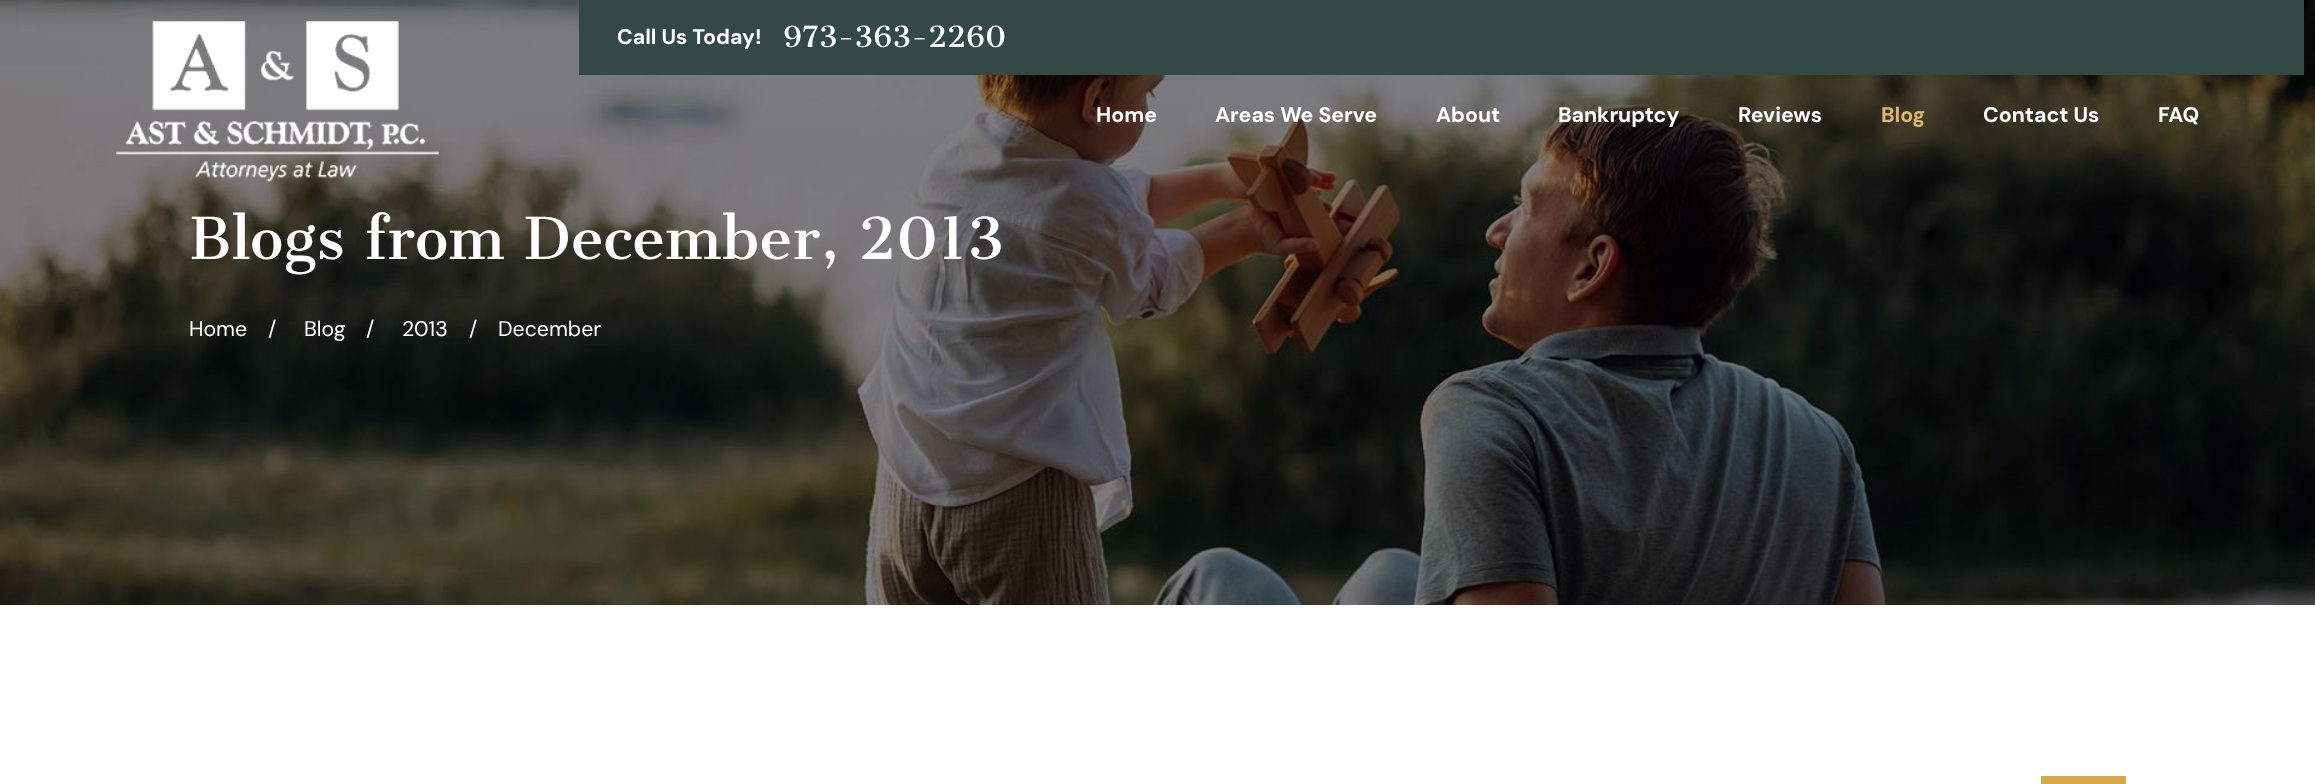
<!DOCTYPE html>
<meta charset="utf-8">
<style>body { margin: 0 } canvas { display: block }</style>
<canvas id="canvas" width="2315" height="784"></canvas>
<img id="img1" src="img_02.png" hidden>
<img id="img2" src="img_01.png" hidden>
<script>
window.onload = function () {
	const canvas = document.getElementById("canvas");
	const ctx = canvas.getContext("2d");
	ctx.miterLimit = 4;
	ctx.fontKerning = "normal";
	function txt(s, x, y) {
		ctx.fillText(s, x, y);
	}
	function fill(x, y, w, h) {
		ctx.fillRect(x, y, w, h);
	}
	function img(id, x, y, w, h) {
		ctx.drawImage(document.getElementById(id), x, y, w, h);
	}

	ctx.fillStyle = "#FFFFFF";
	fill(0, 0, 2315, 784);
	img("img1", 0, 0, 2315, 605);
	img("img2", 116, 21, 323, 161);
	ctx.fillStyle = "#334A44";
	fill(579, 0, 1725, 75);
	ctx.fillStyle = "#D5A74A";
	fill(2041, 776, 85, 8);
	ctx.font = "bold 21.25px DM Sans";
	ctx.fillStyle = "#FFFFFF";
	txt("Call Us Today!", 617, 44);
	ctx.font = "28.5px Cantata One";
	txt("973-363-2260", 783, 47);
	ctx.font = "bold 21.25px DM Sans";
	txt("Home", 1096, 122);
	txt("Areas We Serve", 1215, 122);
	txt("About", 1436, 122);
	txt("Bankruptcy", 1558, 122);
	txt("Reviews", 1738, 122);
	ctx.fillStyle = "#E1B865";
	txt("Blog", 1881, 122);
	ctx.fillStyle = "#FFFFFF";
	txt("Contact Us", 1983, 122);
	txt("FAQ", 2158, 122);
	ctx.font = "56.6px Cantata One";
	txt("Blogs from December, 2013", 189, 259);
	ctx.font = "21.25px DM Sans";
	txt("Home", 189, 336);
	txt("/", 268, 336);
	txt("Blog", 304, 336);
	txt("/", 366, 336);
	txt("2013", 402, 336);
	txt("/", 469, 336);
	txt("December", 498, 336);
};
</script>
